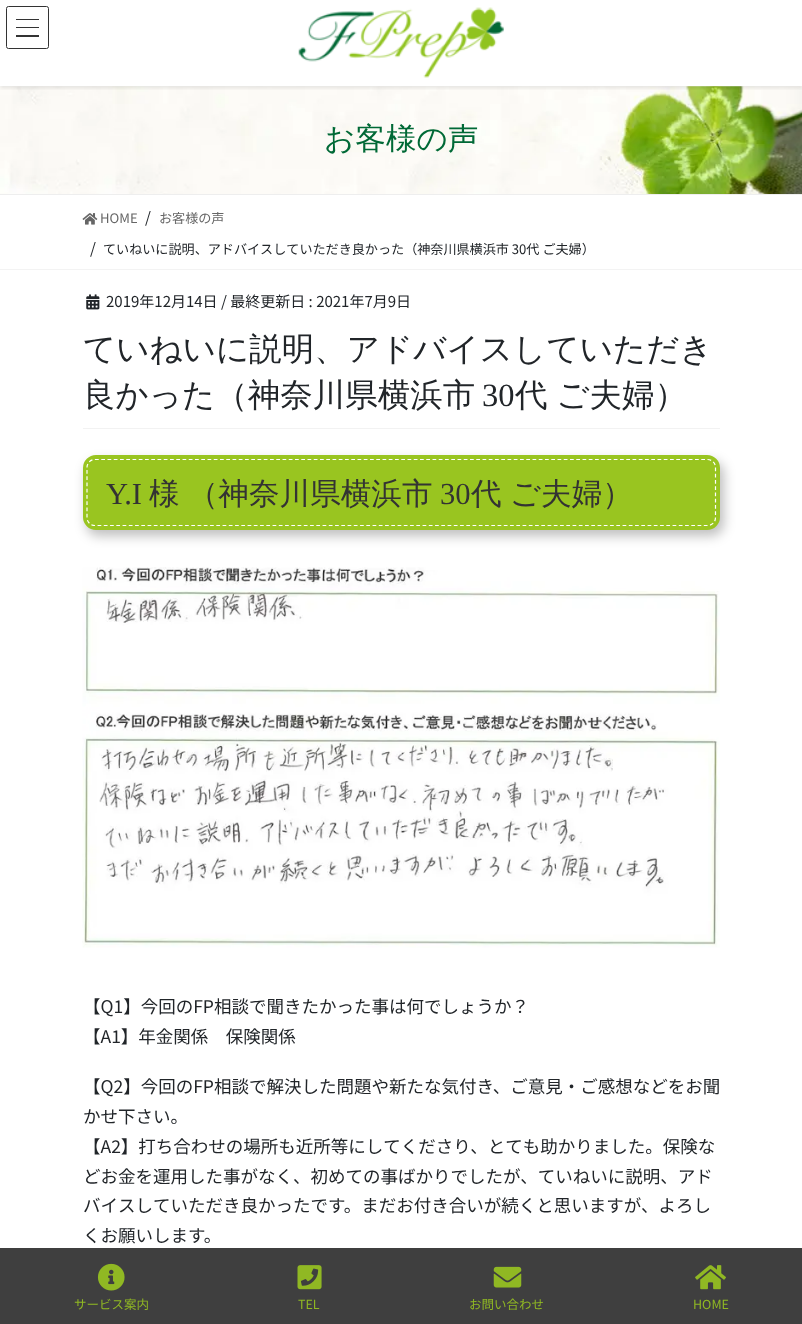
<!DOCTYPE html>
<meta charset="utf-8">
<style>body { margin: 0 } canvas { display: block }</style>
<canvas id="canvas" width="802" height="1324"></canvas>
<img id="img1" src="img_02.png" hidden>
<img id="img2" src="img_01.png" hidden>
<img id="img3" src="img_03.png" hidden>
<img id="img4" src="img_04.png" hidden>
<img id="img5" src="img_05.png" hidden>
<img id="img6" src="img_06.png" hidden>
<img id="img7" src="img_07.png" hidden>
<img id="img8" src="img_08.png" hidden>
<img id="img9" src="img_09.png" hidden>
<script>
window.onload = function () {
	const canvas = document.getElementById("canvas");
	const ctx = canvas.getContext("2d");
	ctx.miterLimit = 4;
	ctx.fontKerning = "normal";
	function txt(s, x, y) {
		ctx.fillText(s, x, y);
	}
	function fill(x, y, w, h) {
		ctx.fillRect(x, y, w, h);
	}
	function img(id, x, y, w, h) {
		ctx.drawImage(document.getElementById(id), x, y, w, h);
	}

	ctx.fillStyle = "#FFFFFF";
	fill(0, 0, 802, 1324);
	img("img1", 0, 86, 802, 108);
	ctx.save();
	ctx.beginPath();
	ctx.rect(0, 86, 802, 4);
	ctx.clip();
	ctx.fillStyle = "rgba(0, 0, 0, 0.1)";
	ctx.filter = "blur(2px)";
	ctx.beginPath();
	ctx.rect(0, 1, 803, 87);
	ctx.fill();
	ctx.filter = "none";
	ctx.restore();
	img("img2", 298, 7, 206, 71);
	ctx.fillStyle = "#333333";
	fill(16, 19, 23, 1);
	fill(16, 27, 23, 1);
	fill(16, 35, 23, 2);
	ctx.beginPath();
	ctx.roundRect(6.5, 6.5, 42, 42, 2);
	ctx.strokeStyle = "#333333";
	ctx.stroke();
	ctx.fillStyle = "#EEEEEE";
	fill(0, 194, 802, 1);
	ctx.fillStyle = "#F3F3F3";
	fill(0, 269, 802, 1);
	img("img3", 82, 213, 16, 12);
	ctx.fillStyle = "#F2F2F2";
	fill(83, 428, 637, 1);
	img("img4", 86, 294, 14, 16);
	ctx.fillStyle = "rgba(0, 0, 0, 0.25)";
	ctx.filter = "blur(6px)";
	ctx.beginPath();
	ctx.roundRect(86, 461, 638, 75, 13);
	ctx.fill();
	ctx.filter = "none";
	ctx.fillStyle = "#99C520";
	ctx.beginPath();
	ctx.roundRect(84.5, 456.5, 634, 72, 11.5);
	ctx.fill();
	ctx.strokeStyle = "#99C520";
	ctx.lineWidth = 3;
	ctx.stroke();
	img("img5", 82, 567, 638, 381);
	ctx.fillStyle = "#3F3F3F";
	fill(0, 1248, 802, 76);
	img("img6", 97, 1263, 28, 28);
	img("img7", 297, 1265, 25, 25);
	img("img8", 493, 1266, 29, 22);
	img("img9", 695, 1265, 31, 25);
	ctx.font = "500 30.6px WenQuanYi Zen Hei";
	ctx.fillStyle = "#006936";
	txt("お客様の声", 324, 149);
	ctx.font = "13.1px Noto Sans JP";
	ctx.fillStyle = "#666666";
	txt("HOME", 100, 223);
	ctx.font = "15px Noto Sans JP";
	ctx.fillStyle = "#212529";
	txt("/", 145, 223);
	ctx.font = "13.1px Noto Sans JP";
	ctx.fillStyle = "#666666";
	txt("お客様の声", 159, 223);
	ctx.font = "15px Noto Sans JP";
	ctx.fillStyle = "#212529";
	txt("/", 90, 254);
	ctx.font = "13.1px Noto Sans JP";
	txt("ていねいに説明、アドバイスしていただき良かった（神奈川県横浜市 30代 ご夫婦）", 103, 254);
	ctx.font = "15px Noto Sans JP";
	txt("2019年12月14日", 106, 307);
	txt("/ 最終更新日 : 2021年7月9日", 221, 307);
	ctx.font = "500 32.5px WenQuanYi Zen Hei";
	txt("ていねいに説明、アドバイスしていただき", 83, 360);
	txt("良かった（神奈川県横浜市", 83, 406);
	ctx.font = "32.5px Liberation Serif";
	txt("30", 482, 406);
	ctx.wordSpacing = "-1px";
	ctx.font = "500 32.5px WenQuanYi Zen Hei";
	txt("代 ご夫婦）", 515, 406);
	ctx.wordSpacing = "0px";
	ctx.font = "30.6px Liberation Serif";
	ctx.fillStyle = "#333333";
	txt("Y.I", 106, 504);
	ctx.wordSpacing = "-1px";
	ctx.font = "500 30.6px WenQuanYi Zen Hei";
	txt("様 （神奈川県横浜市", 149, 504);
	ctx.wordSpacing = "0px";
	ctx.font = "30.6px Liberation Serif";
	txt("30", 440, 504);
	ctx.wordSpacing = "-1px";
	ctx.font = "500 30.6px WenQuanYi Zen Hei";
	txt("代 ご夫婦）", 471, 504);
	ctx.beginPath();
	ctx.moveTo(95, 459.5);
	ctx.lineTo(707.5, 459.5);
	ctx.bezierCurveTo(712, 459.5, 715.5, 463, 715.5, 467.5);
	ctx.lineTo(715.5, 517.5);
	ctx.bezierCurveTo(715.5, 522, 712, 525.5, 707.5, 525.5);
	ctx.lineTo(95, 525.5);
	ctx.bezierCurveTo(90.5, 525.5, 87, 522, 87, 517.5);
	ctx.lineTo(87, 467.5);
	ctx.bezierCurveTo(87, 463, 90.5, 459.5, 95, 459.5);
	ctx.closePath();
	ctx.strokeStyle = "#FFFFFF";
	ctx.lineWidth = 1.2;
	ctx.setLineDash([3.75, 2.5]);
	ctx.stroke();
	ctx.wordSpacing = "0px";
	ctx.font = "17.5px Noto Sans JP";
	ctx.fillStyle = "#212529";
	txt("【Q1】今回のFP相談で聞きたかった事は何でしょうか？", 83, 1013);
	txt("【A1】年金関係　保険関係", 83, 1043);
	txt("【Q2】今回のFP相談で解決した問題や新たな気付き、ご意見・ご感想などをお聞", 83, 1093);
	txt("かせ下さい。", 83, 1123);
	txt("【A2】打ち合わせの場所も近所等にしてくださり、とても助かりました。保険な", 83, 1153);
	txt("どお金を運用した事がなく、初めての事ばかりでしたが、ていねいに説明、アド", 83, 1183);
	txt("バイスしていただき良かったです。まだお付き合いが続くと思いますが、よろし", 83, 1212);
	txt("くお願いします。", 83, 1242);
	ctx.font = "12.5px Noto Sans JP";
	ctx.fillStyle = "#90B823";
	txt("サービス案内", 74, 1309);
	txt("TEL", 298, 1309);
	txt("お問い合わせ", 469, 1309);
	txt("HOME", 693, 1309);
};
</script>
